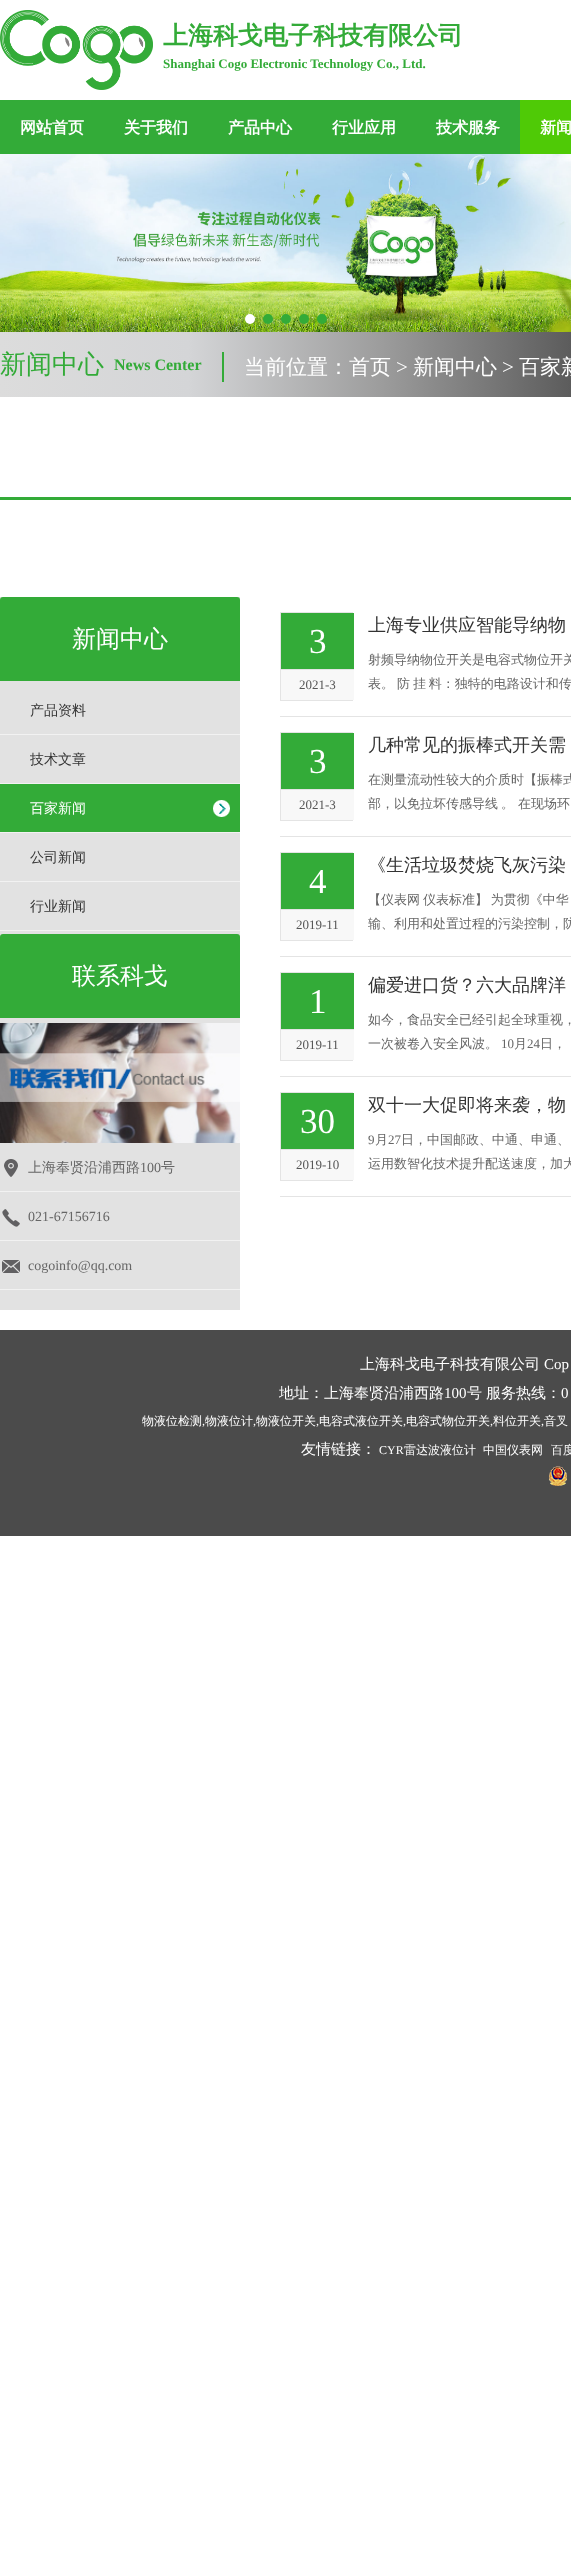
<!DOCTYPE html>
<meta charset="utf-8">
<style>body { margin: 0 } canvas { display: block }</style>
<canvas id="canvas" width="571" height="2564"></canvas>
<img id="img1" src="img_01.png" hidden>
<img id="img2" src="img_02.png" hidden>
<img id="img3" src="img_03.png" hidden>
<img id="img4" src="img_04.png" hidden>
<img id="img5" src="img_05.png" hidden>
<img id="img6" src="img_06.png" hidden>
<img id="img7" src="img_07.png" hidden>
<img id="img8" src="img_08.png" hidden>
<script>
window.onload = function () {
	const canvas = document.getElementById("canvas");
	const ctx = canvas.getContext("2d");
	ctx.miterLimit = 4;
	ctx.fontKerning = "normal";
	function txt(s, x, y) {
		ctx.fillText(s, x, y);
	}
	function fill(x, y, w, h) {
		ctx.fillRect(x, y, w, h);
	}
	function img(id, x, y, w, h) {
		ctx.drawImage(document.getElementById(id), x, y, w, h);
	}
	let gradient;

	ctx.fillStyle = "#FFFFFF";
	fill(0, 0, 571, 2564);
	img("img1", 0, 10, 153, 80);
	ctx.fillStyle = "#33AB38";
	fill(0, 100, 520, 54);
	ctx.fillStyle = "#4FCA06";
	fill(520, 100, 51, 54);
	img("img2", 0, 154, 571, 178);
	ctx.fillStyle = "#FFFFFF";
	ctx.beginPath();
	ctx.arc(250, 319, 5, 0, Math.PI * 2);
	ctx.fill();
	ctx.fillStyle = "#33AB38";
	ctx.beginPath();
	ctx.arc(268, 319, 5, 0, Math.PI * 2);
	ctx.fill();
	ctx.beginPath();
	ctx.arc(286, 319, 5, 0, Math.PI * 2);
	ctx.fill();
	ctx.beginPath();
	ctx.arc(304, 319, 5, 0, Math.PI * 2);
	ctx.fill();
	ctx.beginPath();
	ctx.arc(322, 319, 5, 0, Math.PI * 2);
	ctx.fill();
	gradient = ctx.createLinearGradient(0, 365, 571, 365);
	gradient.addColorStop(0, "#DCDCDC");
	gradient.addColorStop(0.33, "#D4D5D7");
	gradient.addColorStop(0.67, "#9C9C9C");
	gradient.addColorStop(1, "#5C5C5C");
	ctx.fillStyle = gradient;
	fill(0, 332, 571, 65);
	ctx.fillStyle = "#33AB38";
	fill(222, 352, 2, 30);
	fill(0, 497, 571, 3);
	ctx.fillStyle = "#E2E2E2";
	fill(0, 597, 240, 713);
	ctx.fillStyle = "#33AB38";
	ctx.beginPath();
	ctx.roundRect(0, 597, 240, 84, [3, 3, 0, 0]);
	ctx.fill();
	ctx.fillStyle = "#F2F2F2";
	fill(0, 734, 240, 1);
	fill(0, 783, 240, 1);
	ctx.fillStyle = "#33AB38";
	fill(0, 784, 240, 48);
	img("img3", 213, 800, 17, 17);
	ctx.fillStyle = "#F2F2F2";
	fill(0, 832, 240, 1);
	fill(0, 881, 240, 1);
	fill(0, 930, 240, 1);
	ctx.fillStyle = "#33AB38";
	ctx.beginPath();
	ctx.roundRect(0, 934, 240, 84, [3, 3, 0, 0]);
	ctx.fill();
	img("img4", 0, 1023, 240, 120);
	img("img5", 4, 1159, 14, 18);
	ctx.fillStyle = "#F2F2F2";
	fill(0, 1191, 240, 1);
	img("img6", 2, 1209, 18, 18);
	fill(0, 1240, 240, 1);
	img("img7", 2, 1260, 18, 13);
	fill(0, 1289, 240, 1);
	ctx.fillStyle = "#E4E4E4";
	fill(280, 716, 291, 1);
	ctx.strokeStyle = "#E4E4E4";
	ctx.strokeRect(280.5, 612.5, 72, 88);
	ctx.fillStyle = "#33AB38";
	fill(281, 613, 73, 56);
	ctx.fillStyle = "#E4E4E4";
	fill(281, 669, 73, 1);
	ctx.fillStyle = "#F8F8F8";
	fill(281, 670, 73, 30);
	ctx.fillStyle = "#E4E4E4";
	fill(280, 836, 291, 1);
	ctx.strokeRect(280.5, 732.5, 72, 88);
	ctx.fillStyle = "#33AB38";
	fill(281, 733, 73, 56);
	ctx.fillStyle = "#E4E4E4";
	fill(281, 789, 73, 1);
	ctx.fillStyle = "#F8F8F8";
	fill(281, 790, 73, 30);
	ctx.fillStyle = "#E4E4E4";
	fill(280, 956, 291, 1);
	ctx.strokeRect(280.5, 852.5, 72, 88);
	ctx.fillStyle = "#33AB38";
	fill(281, 853, 73, 56);
	ctx.fillStyle = "#E4E4E4";
	fill(281, 909, 73, 1);
	ctx.fillStyle = "#F8F8F8";
	fill(281, 910, 73, 30);
	ctx.fillStyle = "#E4E4E4";
	fill(280, 1076, 291, 1);
	ctx.strokeRect(280.5, 972.5, 72, 88);
	ctx.fillStyle = "#33AB38";
	fill(281, 973, 73, 56);
	ctx.fillStyle = "#E4E4E4";
	fill(281, 1029, 73, 1);
	ctx.fillStyle = "#F8F8F8";
	fill(281, 1030, 73, 30);
	ctx.fillStyle = "#E4E4E4";
	fill(280, 1196, 291, 1);
	ctx.strokeRect(280.5, 1092.5, 72, 88);
	ctx.fillStyle = "#33AB38";
	fill(281, 1093, 73, 56);
	ctx.fillStyle = "#E4E4E4";
	fill(281, 1149, 73, 1);
	ctx.fillStyle = "#F8F8F8";
	fill(281, 1150, 73, 30);
	ctx.fillStyle = "#4B4B4B";
	fill(0, 1330, 571, 206);
	img("img8", 549, 1466, 18, 20);
	ctx.font = "bold 25px WenQuanYi Zen Hei";
	ctx.fillStyle = "#33AB38";
	txt("上海科戈电子科技有限公司", 163, 44);
	ctx.font = "bold 13px Liberation Serif";
	txt("Shanghai Cogo Electronic Technology Co., Ltd.", 163, 68);
	ctx.font = "bold 16px WenQuanYi Zen Hei";
	ctx.fillStyle = "#FFFFFF";
	txt("网站首页", 20, 133);
	txt("关于我们", 124, 133);
	txt("产品中心", 228, 133);
	txt("行业应用", 332, 133);
	txt("技术服务", 436, 133);
	txt("新闻", 540, 133);
	ctx.font = "500 26px WenQuanYi Zen Hei";
	ctx.fillStyle = "#33AB38";
	txt("新闻中心", 0, 373);
	ctx.font = "bold 16px Liberation Serif";
	txt("News Center", 114, 370);
	ctx.font = "500 21px WenQuanYi Zen Hei";
	ctx.fillStyle = "#FFFFFF";
	txt("当前位置：首页", 244, 374);
	ctx.font = "21px Liberation Serif";
	txt(">", 396, 374);
	ctx.font = "500 21px WenQuanYi Zen Hei";
	txt("新闻中心", 413, 374);
	ctx.font = "21px Liberation Serif";
	txt(">", 502, 374);
	ctx.font = "500 21px WenQuanYi Zen Hei";
	txt("百家新", 519, 374);
	ctx.font = "500 24px WenQuanYi Zen Hei";
	txt("新闻中心", 72, 647);
	ctx.font = "500 14px WenQuanYi Zen Hei";
	ctx.fillStyle = "#333333";
	txt("产品资料", 30, 715);
	txt("技术文章", 30, 764);
	ctx.fillStyle = "#FFFFFF";
	txt("百家新闻", 30, 813);
	ctx.fillStyle = "#333333";
	txt("公司新闻", 30, 862);
	txt("行业新闻", 30, 911);
	ctx.font = "500 24px WenQuanYi Zen Hei";
	ctx.fillStyle = "#FFFFFF";
	txt("联系科戈", 72, 984);
	ctx.font = "500 14px WenQuanYi Zen Hei";
	ctx.fillStyle = "#666666";
	txt("上海奉贤沿浦西路", 28, 1172);
	ctx.font = "14px Liberation Serif";
	txt("100", 140, 1172);
	ctx.font = "500 14px WenQuanYi Zen Hei";
	txt("号", 161, 1172);
	ctx.font = "14px Liberation Serif";
	txt("021-67156716", 28, 1221);
	txt("cogoinfo@qq.com", 28, 1270);
	ctx.font = "35px Liberation Serif";
	ctx.fillStyle = "#FFFFFF";
	txt("3", 309, 653);
	ctx.font = "13px Liberation Serif";
	ctx.fillStyle = "#555555";
	txt("2021-3", 299, 689);
	ctx.font = "500 18px WenQuanYi Zen Hei";
	ctx.fillStyle = "#333333";
	txt("上海专业供应智能导纳物", 368, 631);
	ctx.font = "500 13px WenQuanYi Zen Hei";
	ctx.fillStyle = "#666666";
	txt("射频导纳物位开关是电容式物位开关", 368, 664);
	txt("表。", 368, 688);
	ctx.wordSpacing = "-1px";
	txt("防 挂 料：独特的电路设计和传", 397, 688);
	ctx.wordSpacing = "0px";
	ctx.font = "35px Liberation Serif";
	ctx.fillStyle = "#FFFFFF";
	txt("3", 309, 773);
	ctx.font = "13px Liberation Serif";
	ctx.fillStyle = "#555555";
	txt("2021-3", 299, 809);
	ctx.font = "500 18px WenQuanYi Zen Hei";
	ctx.fillStyle = "#333333";
	txt("几种常见的振棒式开关需", 368, 751);
	ctx.font = "500 13px WenQuanYi Zen Hei";
	ctx.fillStyle = "#666666";
	txt("在测量流动性较大的介质时【振棒式", 368, 784);
	ctx.wordSpacing = "-1px";
	txt("部，以免拉坏传感导线 。", 368, 808);
	ctx.wordSpacing = "0px";
	txt("在现场环", 518, 808);
	ctx.font = "35px Liberation Serif";
	ctx.fillStyle = "#FFFFFF";
	txt("4", 309, 893);
	ctx.font = "13px Liberation Serif";
	ctx.fillStyle = "#555555";
	txt("2019-11", 296, 929);
	ctx.font = "500 18px WenQuanYi Zen Hei";
	ctx.fillStyle = "#333333";
	txt("《生活垃圾焚烧飞灰污染", 368, 871);
	ctx.wordSpacing = "-1px";
	ctx.font = "500 13px WenQuanYi Zen Hei";
	ctx.fillStyle = "#666666";
	txt("【仪表网 仪表标准】 为贯彻《中华", 368, 904);
	ctx.wordSpacing = "0px";
	txt("输、利用和处置过程的污染控制，防", 368, 928);
	ctx.font = "35px Liberation Serif";
	ctx.fillStyle = "#FFFFFF";
	txt("1", 309, 1013);
	ctx.font = "13px Liberation Serif";
	ctx.fillStyle = "#555555";
	txt("2019-11", 296, 1049);
	ctx.wordSpacing = "-1px";
	ctx.font = "500 18px WenQuanYi Zen Hei";
	ctx.fillStyle = "#333333";
	txt("偏爱进口货？六大品牌洋", 368, 991);
	ctx.wordSpacing = "0px";
	ctx.font = "500 13px WenQuanYi Zen Hei";
	ctx.fillStyle = "#666666";
	txt("如今，食品安全已经引起全球重视，", 368, 1024);
	txt("一次被卷入安全风波。", 368, 1048);
	ctx.font = "13px Liberation Serif";
	txt("10", 501, 1048);
	ctx.font = "500 13px WenQuanYi Zen Hei";
	txt("月", 514, 1048);
	ctx.font = "13px Liberation Serif";
	txt("24", 527, 1048);
	ctx.font = "500 13px WenQuanYi Zen Hei";
	txt("日，", 540, 1048);
	ctx.font = "35px Liberation Serif";
	ctx.fillStyle = "#FFFFFF";
	txt("30", 300, 1133);
	ctx.font = "13px Liberation Serif";
	ctx.fillStyle = "#555555";
	txt("2019-10", 296, 1169);
	ctx.wordSpacing = "-1px";
	ctx.font = "500 18px WenQuanYi Zen Hei";
	ctx.fillStyle = "#333333";
	txt("双十一大促即将来袭，物", 368, 1111);
	ctx.wordSpacing = "0px";
	ctx.font = "13px Liberation Serif";
	ctx.fillStyle = "#666666";
	txt("9", 368, 1144);
	ctx.font = "500 13px WenQuanYi Zen Hei";
	txt("月", 375, 1144);
	ctx.font = "13px Liberation Serif";
	txt("27", 388, 1144);
	ctx.font = "500 13px WenQuanYi Zen Hei";
	txt("日，中国邮政、中通、申通、", 401, 1144);
	txt("运用数智化技术提升配送速度，加大", 368, 1168);
	ctx.font = "500 15px WenQuanYi Zen Hei";
	ctx.fillStyle = "#FFFFFF";
	txt("上海科戈电子科技有限公司", 360, 1369);
	ctx.font = "15px Liberation Serif";
	txt("Cop", 544, 1369);
	ctx.font = "500 15px WenQuanYi Zen Hei";
	txt("地址：上海奉贤沿浦西路", 279, 1398);
	ctx.font = "15px Liberation Serif";
	txt("100", 444, 1398);
	ctx.font = "500 15px WenQuanYi Zen Hei";
	txt("号", 467, 1398);
	txt("服务热线：", 486, 1398);
	ctx.font = "15px Liberation Serif";
	txt("0", 561, 1398);
	ctx.font = "500 12px WenQuanYi Zen Hei";
	txt("物液位检测", 142, 1425);
	ctx.font = "12px Liberation Serif";
	txt(",", 202, 1425);
	ctx.font = "500 12px WenQuanYi Zen Hei";
	txt("物液位计", 205, 1425);
	ctx.font = "12px Liberation Serif";
	txt(",", 253, 1425);
	ctx.font = "500 12px WenQuanYi Zen Hei";
	txt("物液位开关", 256, 1425);
	ctx.font = "12px Liberation Serif";
	txt(",", 316, 1425);
	ctx.font = "500 12px WenQuanYi Zen Hei";
	txt("电容式液位开关", 319, 1425);
	ctx.font = "12px Liberation Serif";
	txt(",", 403, 1425);
	ctx.font = "500 12px WenQuanYi Zen Hei";
	txt("电容式物位开关", 406, 1425);
	ctx.font = "12px Liberation Serif";
	txt(",", 490, 1425);
	ctx.font = "500 12px WenQuanYi Zen Hei";
	txt("料位开关", 493, 1425);
	ctx.font = "12px Liberation Serif";
	txt(",", 541, 1425);
	ctx.font = "500 12px WenQuanYi Zen Hei";
	txt("音叉", 544, 1425);
	ctx.font = "500 15px WenQuanYi Zen Hei";
	txt("友情链接：", 301, 1454);
	ctx.font = "12px Liberation Serif";
	txt("CYR", 379, 1454);
	ctx.font = "500 12px WenQuanYi Zen Hei";
	txt("雷达波液位计", 404, 1454);
	txt("中国仪表网", 483, 1454);
	txt("百度", 551, 1454);
};
</script>
